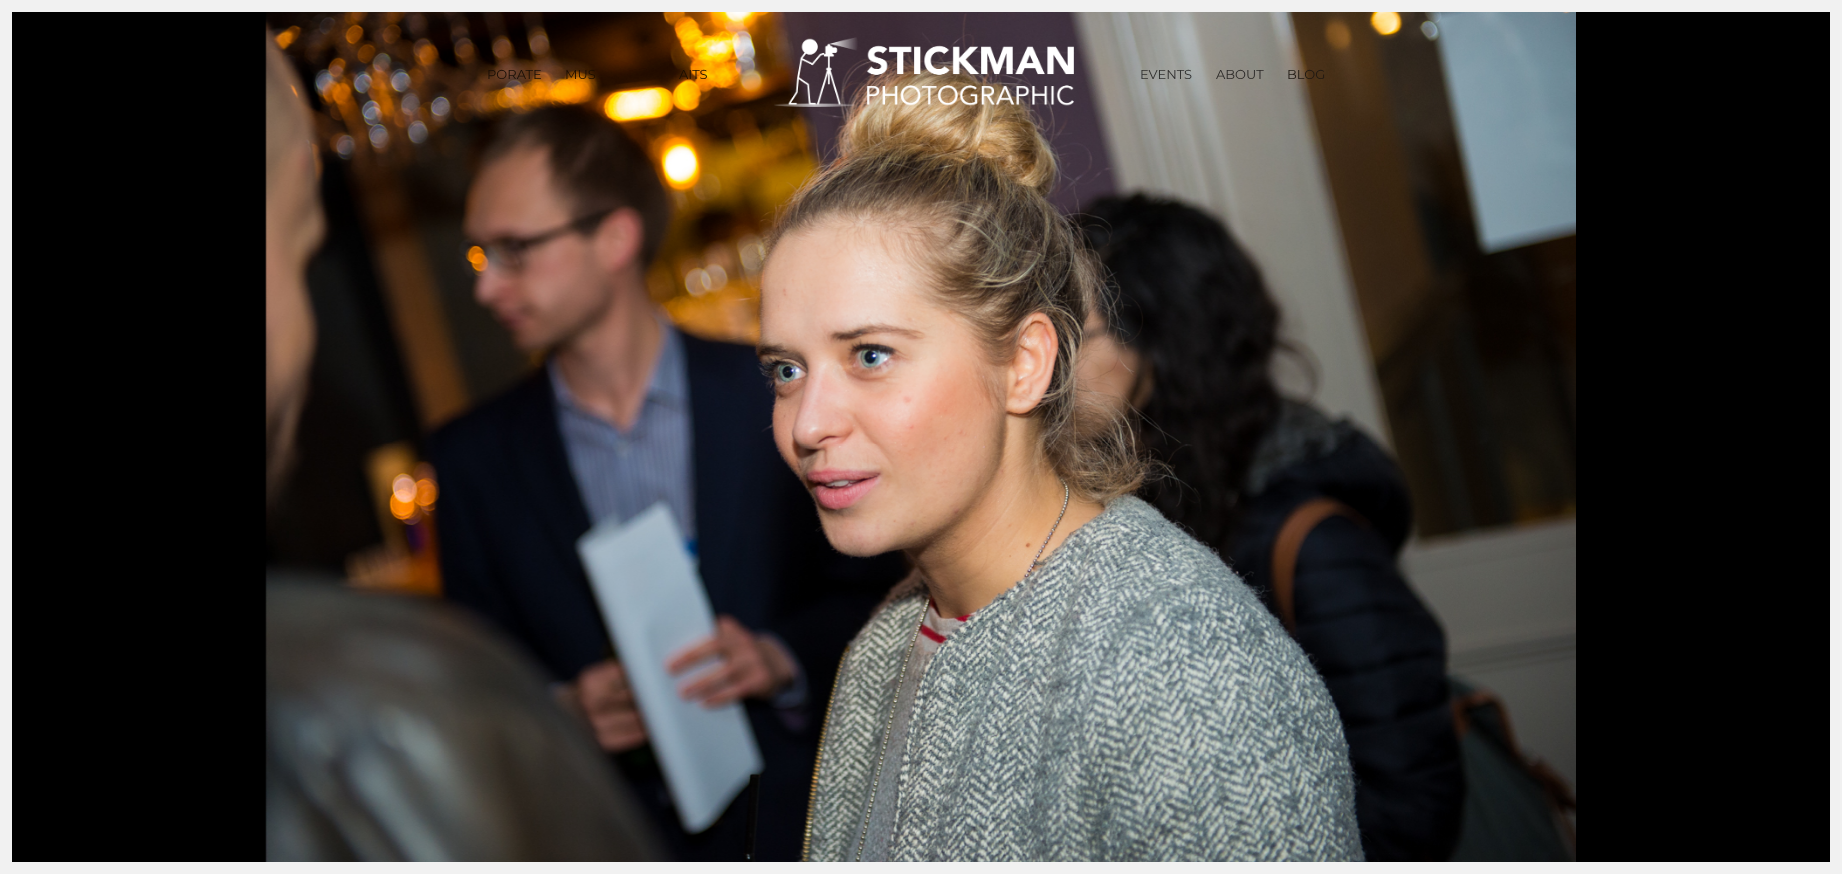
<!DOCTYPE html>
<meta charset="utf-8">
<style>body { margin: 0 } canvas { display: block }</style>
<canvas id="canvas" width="1842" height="874"></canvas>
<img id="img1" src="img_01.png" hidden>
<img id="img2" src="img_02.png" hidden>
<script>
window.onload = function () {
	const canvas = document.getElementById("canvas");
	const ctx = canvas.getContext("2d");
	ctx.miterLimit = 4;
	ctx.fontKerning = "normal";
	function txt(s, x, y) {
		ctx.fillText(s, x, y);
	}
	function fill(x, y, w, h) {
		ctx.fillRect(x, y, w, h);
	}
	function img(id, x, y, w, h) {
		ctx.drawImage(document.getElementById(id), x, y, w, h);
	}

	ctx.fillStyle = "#000000";
	fill(0, 0, 1842, 874);
	ctx.fillStyle = "#F1F1F1";
	fill(0, 0, 12, 874);
	fill(12, 0, 1818, 12);
	fill(1830, 0, 12, 862);
	fill(12, 862, 1830, 12);
	img("img1", 265, 12, 1311, 850);
	img("img2", 774, 37, 300, 70);
	ctx.font = "100 13px Montserrat";
	ctx.fillStyle = "#190F07";
	txt("PORATE", 487, 79);
	ctx.fillStyle = "#1B0E01";
	txt("MUS", 565, 79);
	txt("AITS", 679, 79);
	ctx.fillStyle = "#30302F";
	txt("EVENTS", 1140, 79);
	ctx.fillStyle = "#2C2A28";
	txt("ABOUT", 1216, 79);
	ctx.fillStyle = "#1F1913";
	txt("BLOG", 1287, 79);
};
</script>
